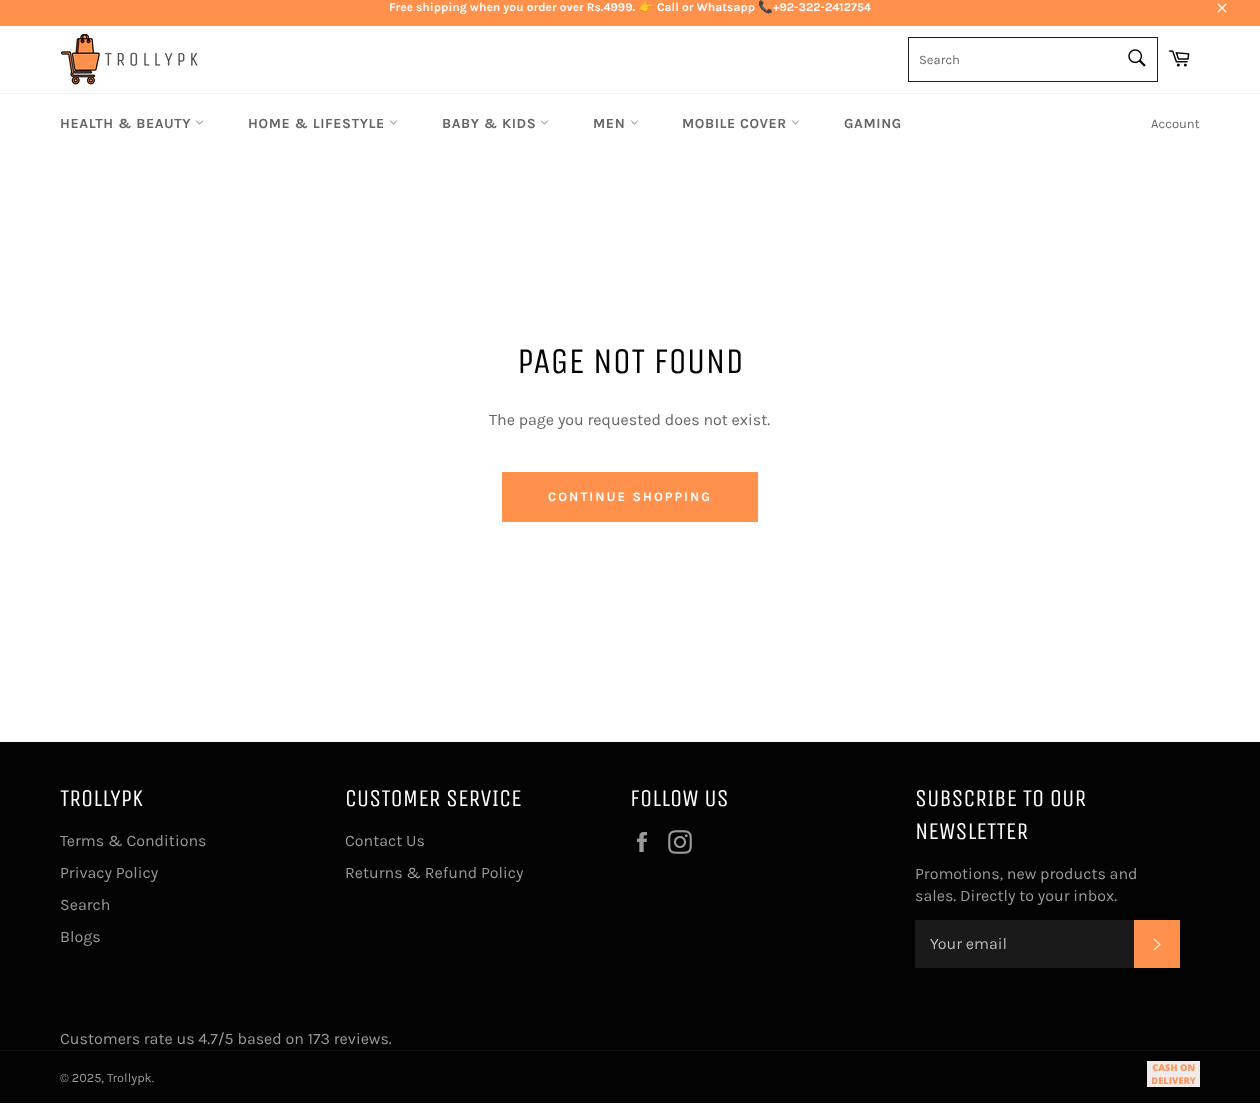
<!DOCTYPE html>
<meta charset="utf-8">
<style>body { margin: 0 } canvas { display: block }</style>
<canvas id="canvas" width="1260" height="1106"></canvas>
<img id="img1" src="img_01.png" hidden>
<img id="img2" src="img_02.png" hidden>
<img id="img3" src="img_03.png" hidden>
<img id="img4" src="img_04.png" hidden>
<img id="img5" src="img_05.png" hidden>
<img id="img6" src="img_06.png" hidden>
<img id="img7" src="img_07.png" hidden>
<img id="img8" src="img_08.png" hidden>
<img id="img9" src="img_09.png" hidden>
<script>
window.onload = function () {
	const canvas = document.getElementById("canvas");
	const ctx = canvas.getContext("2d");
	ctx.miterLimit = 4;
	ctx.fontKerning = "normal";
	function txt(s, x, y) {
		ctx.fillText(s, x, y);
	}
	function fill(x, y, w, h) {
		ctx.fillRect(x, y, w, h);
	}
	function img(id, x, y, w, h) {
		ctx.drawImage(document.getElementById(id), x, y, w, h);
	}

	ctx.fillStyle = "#FFFFFF";
	fill(0, 0, 1260, 1106);
	ctx.fillStyle = "#FF914D";
	fill(0, 0, 1260, 26);
	img("img1", 1217, 3, 10, 10);
	img("img2", 60, 32, 140, 54);
	ctx.strokeStyle = "#1C1D1D";
	ctx.strokeRect(908.5, 37.5, 249, 44);
	img("img3", 1128, 49, 18, 18);
	img("img4", 1168, 50, 22, 17);
	ctx.fillStyle = "#F2F2F2";
	fill(0, 93, 1260, 1);
	img("img5", 196, 120, 7, 5);
	img("img5", 390, 120, 7, 5);
	img("img5", 541, 120, 7, 5);
	img("img5", 631, 120, 7, 5);
	img("img5", 792, 120, 7, 5);
	ctx.fillStyle = "#FF914D";
	fill(502, 472, 256, 50);
	ctx.fillStyle = "#030303";
	fill(0, 742, 1260, 361);
	img("img6", 637, 832, 10, 20);
	img("img7", 668, 830, 24, 24);
	ctx.fillStyle = "#1A1A1A";
	fill(915, 920, 219, 48);
	ctx.fillStyle = "#FF914D";
	fill(1134, 920, 46, 48);
	img("img8", 1153, 938, 8, 13);
	ctx.fillStyle = "#101010";
	fill(0, 1050, 1260, 1);
	img("img9", 1147, 1061, 53, 26);
	ctx.font = "bold 12px Karla";
	ctx.fillStyle = "#FFFFFF";
	txt("Free shipping when you order over Rs.4999.", 389, 11);
	ctx.font = "bold 12px Noto Color Emoji";
	txt("👉", 639, 11);
	ctx.font = "bold 12px Karla";
	txt("Call or Whatsapp", 657, 11);
	ctx.font = "bold 12px Noto Color Emoji";
	txt("📞", 758, 11);
	ctx.font = "bold 12px Karla";
	txt("+92-322-2412754", 773, 11);
	ctx.font = "13px Karla";
	ctx.fillStyle = "#666666";
	txt("Search", 919, 64);
	ctx.letterSpacing = "0.6px";
	ctx.font = "bold 14px Karla";
	txt("HEALTH & BEAUTY", 60, 128);
	txt("HOME & LIFESTYLE", 248, 128);
	txt("BABY & KIDS", 442, 128);
	txt("MEN", 593, 128);
	txt("MOBILE COVER", 682, 128);
	txt("GAMING", 844, 128);
	ctx.letterSpacing = "0px";
	ctx.font = "13px Karla";
	txt("Account", 1151, 128);
	ctx.font = "36px Unica One";
	ctx.fillStyle = "#030303";
	txt("PAGE NOT FOUND", 517, 373);
	ctx.font = "16px Karla";
	ctx.fillStyle = "#666666";
	txt("The page you requested does not exist.", 489, 425);
	ctx.letterSpacing = "2px";
	ctx.font = "bold 13px Karla";
	ctx.fillStyle = "#FFFFFF";
	txt("CONTINUE SHOPPING", 548, 501);
	ctx.letterSpacing = "0px";
	ctx.font = "24px Unica One";
	txt("TROLLYPK", 60, 806);
	ctx.font = "16px Karla";
	ctx.fillStyle = "#9A9A9A";
	txt("Terms & Conditions", 60, 846);
	txt("Privacy Policy", 60, 878);
	txt("Search", 60, 910);
	txt("Blogs", 60, 942);
	ctx.font = "24px Unica One";
	ctx.fillStyle = "#FFFFFF";
	txt("CUSTOMER SERVICE", 345, 806);
	ctx.font = "16px Karla";
	ctx.fillStyle = "#9A9A9A";
	txt("Contact Us", 345, 846);
	txt("Returns & Refund Policy", 345, 878);
	ctx.font = "24px Unica One";
	ctx.fillStyle = "#FFFFFF";
	txt("FOLLOW US", 630, 806);
	txt("SUBSCRIBE TO OUR", 915, 806);
	txt("NEWSLETTER", 915, 839);
	ctx.font = "16px Karla";
	ctx.fillStyle = "#9A9A9A";
	txt("Promotions, new products and", 915, 879);
	txt("sales. Directly to your inbox.", 915, 901);
	ctx.fillStyle = "#BABABA";
	txt("Your email", 930, 949);
	ctx.fillStyle = "#9A9A9A";
	txt("Customers rate us 4.7/5 based on 173 reviews.", 60, 1044);
	ctx.font = "12.75px Karla";
	txt("© 2025, Trollypk.", 60, 1082);
};
</script>
